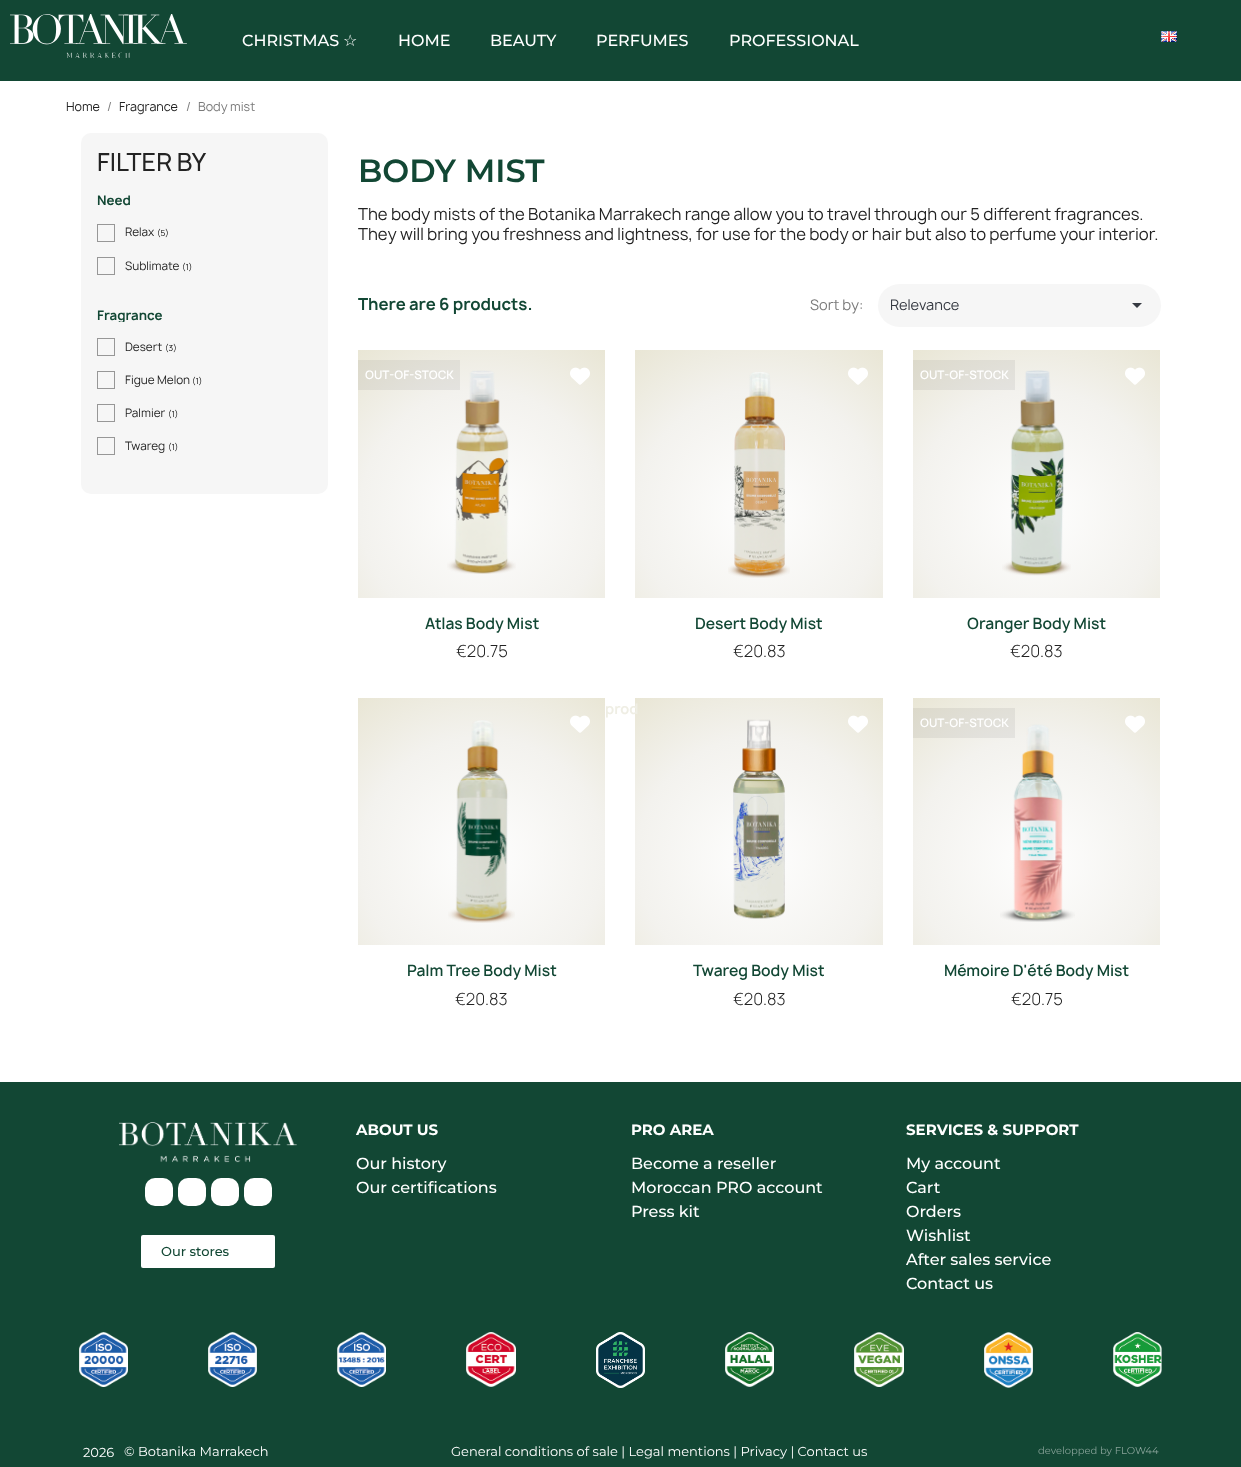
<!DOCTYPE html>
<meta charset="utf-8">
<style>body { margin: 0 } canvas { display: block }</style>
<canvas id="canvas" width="1241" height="1467"></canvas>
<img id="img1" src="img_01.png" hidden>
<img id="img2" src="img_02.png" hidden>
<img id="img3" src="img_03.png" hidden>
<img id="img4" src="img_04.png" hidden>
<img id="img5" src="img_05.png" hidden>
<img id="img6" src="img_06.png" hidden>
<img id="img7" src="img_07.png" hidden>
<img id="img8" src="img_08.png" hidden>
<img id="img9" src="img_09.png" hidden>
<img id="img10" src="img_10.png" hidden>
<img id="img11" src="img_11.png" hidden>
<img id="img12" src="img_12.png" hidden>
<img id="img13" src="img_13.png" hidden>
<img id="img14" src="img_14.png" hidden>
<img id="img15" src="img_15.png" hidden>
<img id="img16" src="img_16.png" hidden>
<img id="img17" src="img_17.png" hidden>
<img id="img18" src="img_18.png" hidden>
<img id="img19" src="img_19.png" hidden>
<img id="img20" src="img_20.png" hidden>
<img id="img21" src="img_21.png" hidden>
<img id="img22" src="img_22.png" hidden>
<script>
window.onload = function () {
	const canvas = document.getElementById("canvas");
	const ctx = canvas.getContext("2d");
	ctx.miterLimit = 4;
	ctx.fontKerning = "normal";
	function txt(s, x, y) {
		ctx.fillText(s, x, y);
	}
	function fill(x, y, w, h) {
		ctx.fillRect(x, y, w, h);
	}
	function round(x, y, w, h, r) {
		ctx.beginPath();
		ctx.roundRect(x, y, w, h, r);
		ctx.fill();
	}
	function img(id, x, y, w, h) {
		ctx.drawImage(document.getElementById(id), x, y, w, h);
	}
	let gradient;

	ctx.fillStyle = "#FFFFFF";
	fill(0, 0, 1241, 1467);
	ctx.fillStyle = "#124734";
	fill(0, 0, 1241, 81);
	img("img1", 10, 14, 177, 44);
	img("img2", 1161, 31, 16, 11);
	ctx.fillStyle = "#F6F6F6";
	round(81, 133, 247, 361, 10);
	ctx.strokeStyle = "#979797";
	ctx.strokeRect(97.5, 224.5, 17, 17);
	ctx.strokeRect(97.5, 257.5, 17, 17);
	ctx.strokeRect(97.5, 338.5, 17, 17);
	ctx.strokeRect(97.5, 371.5, 17, 17);
	ctx.strokeRect(97.5, 404.5, 17, 17);
	ctx.strokeRect(97.5, 437.5, 17, 17);
	round(878, 284, 283, 43, 21.5);
	ctx.fillStyle = "#363A42";
	ctx.beginPath();
	ctx.moveTo(1132, 303);
	ctx.lineTo(1142, 303);
	ctx.lineTo(1137, 308);
	ctx.closePath();
	ctx.fill();
	gradient = ctx.createRadialGradient(482, 512, 0, 482, 512, 203);
	gradient.addColorStop(0, "#FEFEFE");
	gradient.addColorStop(0.6, "#F3F2EE");
	gradient.addColorStop(1, "#E9E6D5");
	ctx.fillStyle = gradient;
	fill(358, 350, 247, 248);
	gradient = ctx.createRadialGradient(482, 512, 0, 482, 512, 203);
	gradient.addColorStop(0, "#EFEFEF");
	gradient.addColorStop(0.6, "#E4E3E0");
	gradient.addColorStop(1, "#DBD8C8");
	ctx.fillStyle = gradient;
	fill(358, 360, 102, 30);
	img("img3", 447, 370, 69, 204);
	img("img4", 570, 367, 20, 18);
	gradient = ctx.createRadialGradient(759, 512, 0, 759, 512, 204);
	gradient.addColorStop(0, "#FEFEFE");
	gradient.addColorStop(0.6, "#F3F2EE");
	gradient.addColorStop(1, "#E9E6D5");
	ctx.fillStyle = gradient;
	fill(635, 350, 248, 248);
	img("img5", 728, 372, 62, 206);
	img("img6", 848, 367, 20, 18);
	gradient = ctx.createRadialGradient(1037, 512, 0, 1037, 512, 203);
	gradient.addColorStop(0, "#FEFEFE");
	gradient.addColorStop(0.6, "#F3F2EE");
	gradient.addColorStop(1, "#E9E6D5");
	ctx.fillStyle = gradient;
	fill(913, 350, 247, 248);
	gradient = ctx.createRadialGradient(1037, 512, 0, 1037, 512, 203);
	gradient.addColorStop(0, "#EFEFEF");
	gradient.addColorStop(0.6, "#E4E3E0");
	gradient.addColorStop(1, "#DBD8C8");
	ctx.fillStyle = gradient;
	fill(913, 360, 102, 30);
	img("img7", 1002, 370, 69, 206);
	img("img4", 1125, 367, 20, 18);
	gradient = ctx.createRadialGradient(482, 859, 0, 482, 859, 203);
	gradient.addColorStop(0, "#FEFEFE");
	gradient.addColorStop(0.6, "#F3F2EE");
	gradient.addColorStop(1, "#E9E6D5");
	ctx.fillStyle = gradient;
	fill(358, 698, 247, 247);
	img("img8", 448, 720, 67, 203);
	img("img9", 570, 715, 20, 18);
	gradient = ctx.createRadialGradient(759, 859, 0, 759, 859, 203);
	gradient.addColorStop(0, "#FEFEFE");
	gradient.addColorStop(0.6, "#F3F2EE");
	gradient.addColorStop(1, "#E9E6D5");
	ctx.fillStyle = gradient;
	fill(635, 698, 248, 247);
	img("img10", 733, 719, 52, 200);
	img("img11", 848, 715, 20, 18);
	gradient = ctx.createRadialGradient(1037, 859, 0, 1037, 859, 203);
	gradient.addColorStop(0, "#FEFEFE");
	gradient.addColorStop(0.6, "#F3F2EE");
	gradient.addColorStop(1, "#E9E6D5");
	ctx.fillStyle = gradient;
	fill(913, 698, 247, 247);
	gradient = ctx.createRadialGradient(1037, 859, 0, 1037, 859, 203);
	gradient.addColorStop(0, "#EFEFEF");
	gradient.addColorStop(0.6, "#E4E3E0");
	gradient.addColorStop(1, "#DBD8C8");
	ctx.fillStyle = gradient;
	fill(913, 708, 102, 30);
	img("img9", 1125, 715, 20, 18);
	img("img12", 1000, 724, 75, 198);
	ctx.fillStyle = "#124734";
	fill(0, 1082, 1241, 385);
	img("img13", 119, 1122, 178, 41);
	ctx.fillStyle = "#FFFFFF";
	round(145, 1178, 28, 28, 10);
	round(178, 1178, 28, 28, 10);
	round(211, 1178, 28, 28, 10);
	round(244, 1178, 28, 28, 10);
	round(141, 1235, 134, 33, 2);
	img("img14", 79, 1332, 49, 55);
	img("img15", 208, 1332, 49, 55);
	img("img16", 337, 1332, 49, 55);
	img("img17", 466, 1332, 50, 55);
	img("img18", 596, 1332, 49, 56);
	img("img19", 725, 1332, 49, 55);
	img("img20", 854, 1332, 50, 55);
	img("img21", 984, 1332, 49, 56);
	img("img22", 1113, 1332, 49, 55);
	ctx.font = "500 16px Montserrat";
	txt("CHRISTMAS", 242, 46);
	ctx.font = "16px DejaVu Sans";
	txt("☆", 343, 46);
	ctx.font = "500 16px Montserrat";
	txt("HOME", 398, 46);
	txt("BEAUTY", 490, 46);
	txt("PERFUMES", 596, 46);
	txt("PROFESSIONAL", 729, 46);
	ctx.font = "12px Manrope";
	ctx.fillStyle = "#232323";
	txt("Home", 66, 111);
	ctx.fillStyle = "#7A7A7A";
	txt("/", 107, 111);
	ctx.fillStyle = "#232323";
	txt("Fragrance", 119, 111);
	ctx.fillStyle = "#7A7A7A";
	txt("/", 186, 111);
	txt("Body mist", 198, 111);
	ctx.font = "500 24px Manrope";
	ctx.fillStyle = "#232323";
	txt("FILTER BY", 97, 171);
	ctx.font = "bold 12.75px Manrope";
	ctx.fillStyle = "#124734";
	txt("Need", 97, 205);
	ctx.font = "11.25px Manrope";
	ctx.fillStyle = "#232323";
	txt("Relax", 125, 236);
	ctx.font = "8px Manrope";
	ctx.fillStyle = "#000000";
	txt("(5)", 157, 236);
	ctx.font = "11.25px Manrope";
	ctx.fillStyle = "#232323";
	txt("Sublimate", 125, 270);
	ctx.font = "8px Manrope";
	ctx.fillStyle = "#000000";
	txt("(1)", 182, 270);
	ctx.save();
	ctx.beginPath();
	ctx.rect(97, 308, 185, 14);
	ctx.clip();
	ctx.font = "bold 12.75px Manrope";
	ctx.fillStyle = "#124734";
	txt("Fragrance", 97, 320);
	ctx.restore();
	ctx.font = "11.25px Manrope";
	ctx.fillStyle = "#232323";
	txt("Desert", 125, 351);
	ctx.font = "8px Manrope";
	ctx.fillStyle = "#000000";
	txt("(3)", 165, 351);
	ctx.font = "11.25px Manrope";
	ctx.fillStyle = "#232323";
	txt("Figue Melon", 125, 384);
	ctx.font = "8px Manrope";
	ctx.fillStyle = "#000000";
	txt("(1)", 192, 384);
	ctx.font = "11.25px Manrope";
	ctx.fillStyle = "#232323";
	txt("Palmier", 125, 417);
	ctx.font = "8px Manrope";
	ctx.fillStyle = "#000000";
	txt("(1)", 168, 417);
	ctx.font = "11.25px Manrope";
	ctx.fillStyle = "#232323";
	txt("Twareg", 125, 450);
	ctx.font = "8px Manrope";
	ctx.fillStyle = "#000000";
	txt("(1)", 168, 450);
	ctx.font = "600 32px Montserrat";
	ctx.fillStyle = "#124734";
	txt("BODY MIST", 358, 182);
	ctx.font = "16px Manrope";
	ctx.fillStyle = "#232323";
	txt("The body mists of the Botanika Marrakech range allow you to travel through our 5 different fragrances.", 358, 220);
	txt("They will bring you freshness and lightness, for use for the body or hair but also to perfume your interior.", 358, 240);
	ctx.font = "bold 16px Manrope";
	ctx.fillStyle = "#124734";
	txt("There are 6 products.", 358, 310);
	ctx.font = "14px Manrope";
	ctx.fillStyle = "#7A7A7A";
	txt("Sort by:", 810, 310);
	ctx.fillStyle = "#363A42";
	txt("Relevance", 890, 310);
	ctx.font = "600 11.25px Manrope";
	ctx.fillStyle = "#FFFFFF";
	txt("OUT-OF-STOCK", 365, 379);
	ctx.font = "600 15px Manrope";
	ctx.fillStyle = "#124734";
	txt("Atlas Body Mist", 425, 629);
	ctx.font = "300 16px Manrope";
	ctx.fillStyle = "#232323";
	txt("€20.75", 456, 657);
	ctx.font = "600 15px Manrope";
	ctx.fillStyle = "#124734";
	txt("Desert Body Mist", 695, 629);
	ctx.font = "300 16px Manrope";
	ctx.fillStyle = "#232323";
	txt("€20.83", 733, 657);
	ctx.font = "600 11.25px Manrope";
	ctx.fillStyle = "#FFFFFF";
	txt("OUT-OF-STOCK", 920, 379);
	ctx.font = "600 15px Manrope";
	ctx.fillStyle = "#124734";
	txt("Oranger Body Mist", 967, 629);
	ctx.font = "300 16px Manrope";
	ctx.fillStyle = "#232323";
	txt("€20.83", 1010, 657);
	ctx.font = "600 15px Manrope";
	ctx.fillStyle = "#124734";
	txt("Palm Tree Body Mist", 407, 976);
	ctx.font = "300 16px Manrope";
	ctx.fillStyle = "#232323";
	txt("€20.83", 455, 1005);
	ctx.font = "600 15px Manrope";
	ctx.fillStyle = "#124734";
	txt("Twareg Body Mist", 693, 976);
	ctx.font = "300 16px Manrope";
	ctx.fillStyle = "#232323";
	txt("€20.83", 733, 1005);
	ctx.font = "600 11.25px Manrope";
	ctx.fillStyle = "#FFFFFF";
	txt("OUT-OF-STOCK", 920, 727);
	ctx.font = "600 15px Manrope";
	ctx.fillStyle = "#124734";
	txt("Mémoire D'été Body Mist", 944, 976);
	ctx.font = "300 16px Manrope";
	ctx.fillStyle = "#232323";
	txt("€20.75", 1011, 1005);
	ctx.font = "500 13px Montserrat";
	ctx.fillStyle = "#124734";
	txt("Our stores", 161, 1256);
	ctx.font = "bold 15px Montserrat";
	ctx.fillStyle = "#FFFFFF";
	txt("ABOUT US", 356, 1135);
	ctx.font = "500 16px Montserrat";
	txt("Our history", 356, 1169);
	txt("Our certifications", 356, 1193);
	ctx.font = "bold 15px Montserrat";
	txt("PRO AREA", 631, 1135);
	ctx.font = "500 16px Montserrat";
	txt("Become a reseller", 631, 1169);
	txt("Moroccan PRO account", 631, 1193);
	txt("Press kit", 631, 1217);
	ctx.font = "bold 15px Montserrat";
	txt("SERVICES & SUPPORT", 906, 1135);
	ctx.font = "500 16px Montserrat";
	txt("My account", 906, 1169);
	txt("Cart", 906, 1193);
	txt("Orders", 906, 1217);
	txt("Wishlist", 906, 1241);
	txt("After sales service", 906, 1265);
	txt("Contact us", 906, 1289);
	ctx.font = "100 13px Montserrat";
	txt("2026", 83, 1457);
	txt("© Botanika Marrakech", 124, 1456);
	txt("General conditions of sale | Legal mentions | Privacy | Contact us", 451, 1456);
	ctx.font = "100 10px Montserrat";
	ctx.fillStyle = "#89A39A";
	txt("developped by FLOW44", 1038, 1454);
	ctx.font = "bold 14px Manrope";
	ctx.fillStyle = "#EFEEE4";
	txt("prod", 605, 714);
};
</script>
